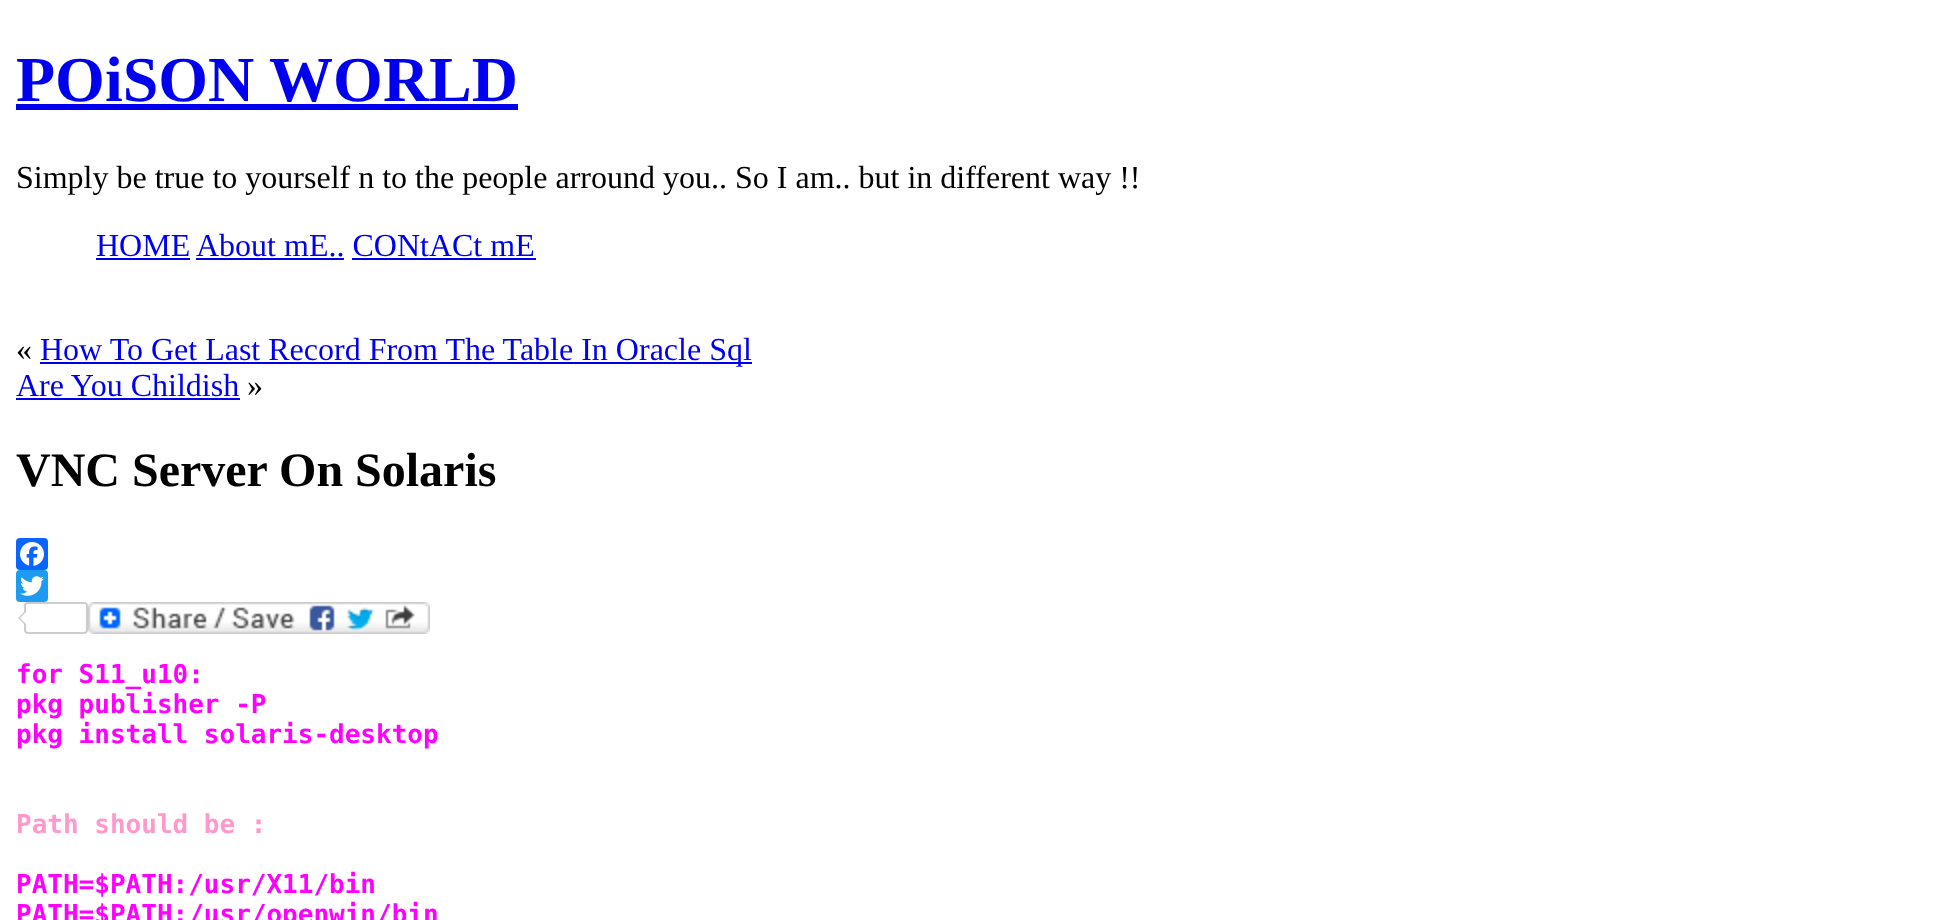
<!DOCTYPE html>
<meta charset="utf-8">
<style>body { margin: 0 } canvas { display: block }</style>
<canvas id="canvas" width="1933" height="920"></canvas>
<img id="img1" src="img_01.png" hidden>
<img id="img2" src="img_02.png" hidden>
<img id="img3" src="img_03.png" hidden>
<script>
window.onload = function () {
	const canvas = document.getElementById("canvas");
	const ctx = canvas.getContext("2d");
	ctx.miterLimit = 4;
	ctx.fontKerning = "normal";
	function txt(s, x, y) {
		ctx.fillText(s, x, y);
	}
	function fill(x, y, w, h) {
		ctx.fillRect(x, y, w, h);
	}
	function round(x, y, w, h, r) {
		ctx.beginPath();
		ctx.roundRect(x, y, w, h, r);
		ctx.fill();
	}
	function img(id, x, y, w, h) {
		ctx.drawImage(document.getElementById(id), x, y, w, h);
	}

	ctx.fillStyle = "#FFFFFF";
	fill(0, 0, 1933, 920);
	ctx.fillStyle = "#0000EE";
	fill(16, 104, 502, 6);
	fill(96, 258, 94, 2);
	fill(196, 258, 148, 2);
	fill(352, 258, 184, 2);
	fill(40, 362, 712, 2);
	fill(16, 398, 224, 2);
	ctx.fillStyle = "#0866FF";
	round(16, 538, 32, 32, 4);
	img("img1", 20, 542, 24, 24);
	ctx.fillStyle = "#1D9BF0";
	round(16, 570, 32, 32, 4);
	img("img2", 20, 576, 24, 20);
	ctx.beginPath();
	ctx.roundRect(25, 603, 62, 30, 3);
	ctx.strokeStyle = "#CCCCCC";
	ctx.lineWidth = 2;
	ctx.stroke();
	ctx.fillStyle = "#CCCCCC";
	ctx.beginPath();
	ctx.moveTo(26, 610);
	ctx.lineTo(26, 626);
	ctx.lineTo(18, 618);
	ctx.closePath();
	ctx.fill();
	ctx.fillStyle = "#FFFFFF";
	ctx.beginPath();
	ctx.moveTo(28, 610);
	ctx.lineTo(28, 626);
	ctx.lineTo(20, 618);
	ctx.closePath();
	ctx.fill();
	img("img3", 88, 602, 342, 32);
	ctx.font = "bold 64px Liberation Serif";
	ctx.fillStyle = "#0000EE";
	txt("POiSON WORLD", 16, 101);
	ctx.font = "32px Liberation Serif";
	ctx.fillStyle = "#000000";
	txt("Simply be true to yourself n to the people arround you.. So I am.. but in different way !!", 16, 188);
	ctx.fillStyle = "#0000EE";
	txt("HOME", 96, 256);
	txt("About mE.. CONtACt mE", 196, 256);
	ctx.fillStyle = "#000000";
	txt("«", 16, 360);
	ctx.fillStyle = "#0000EE";
	txt("How To Get Last Record From The Table In Oracle Sql", 40, 360);
	txt("Are You Childish", 16, 396);
	ctx.fillStyle = "#000000";
	txt("»", 247, 396);
	ctx.font = "bold 48px Liberation Serif";
	txt("VNC Server On Solaris", 16, 486);
	ctx.font = "bold 26px DejaVu Sans Mono";
	ctx.fillStyle = "#FF00FF";
	txt("for S11_u10:", 16, 683);
	txt("pkg publisher -P", 16, 713);
	txt("pkg install solaris-desktop", 16, 743);
	ctx.fillStyle = "#FF99CC";
	txt("Path should be :", 16, 833);
	ctx.fillStyle = "#FF00FF";
	txt("PATH=$PATH:/usr/X11/bin", 16, 893);
	txt("PATH=$PATH:/usr/openwin/bin", 16, 923);
};
</script>
